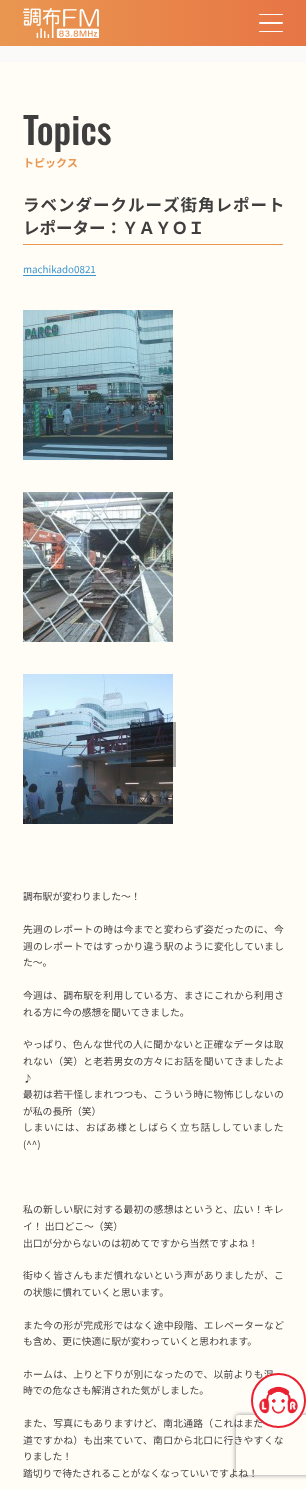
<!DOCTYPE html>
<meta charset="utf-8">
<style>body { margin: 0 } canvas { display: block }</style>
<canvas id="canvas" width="306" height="1489"></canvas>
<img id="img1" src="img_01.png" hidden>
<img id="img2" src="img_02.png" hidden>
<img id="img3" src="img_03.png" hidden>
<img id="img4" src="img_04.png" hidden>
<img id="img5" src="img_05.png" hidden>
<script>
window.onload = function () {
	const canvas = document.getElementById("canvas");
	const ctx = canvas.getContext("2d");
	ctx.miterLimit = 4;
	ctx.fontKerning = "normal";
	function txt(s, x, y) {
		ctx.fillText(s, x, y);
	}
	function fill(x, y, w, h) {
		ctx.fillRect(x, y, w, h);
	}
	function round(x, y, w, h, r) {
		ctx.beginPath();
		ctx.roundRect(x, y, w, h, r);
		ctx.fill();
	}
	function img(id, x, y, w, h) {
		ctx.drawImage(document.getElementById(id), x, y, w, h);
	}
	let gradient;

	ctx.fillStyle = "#FFFDF6";
	fill(0, 0, 306, 1489);
	gradient = ctx.createLinearGradient(0, 23, 306, 23);
	gradient.addColorStop(0, "#E99751");
	gradient.addColorStop(1, "#E77545");
	ctx.fillStyle = gradient;
	fill(0, 0, 306, 46);
	img("img1", 23, 8, 76, 30);
	ctx.fillStyle = "#FFFFFE";
	round(259, 14, 24, 1, 0.5);
	round(259, 22, 24, 2, 1);
	round(259, 31, 24, 1, 0.5);
	ctx.fillStyle = "#FAFAF9";
	fill(0, 46, 306, 16);
	ctx.fillStyle = "#E99751";
	fill(23, 244, 260, 1);
	ctx.fillStyle = "#3895D1";
	fill(23, 275, 73, 1);
	img("img2", 23, 310, 150, 150);
	img("img3", 23, 492, 150, 150);
	img("img4", 23, 674, 150, 150);
	ctx.fillStyle = "rgba(0, 0, 0, 0.13)";
	fill(131, 722, 45, 45);
	fill(131, 722, 45, 45);
	fill(131, 722, 45, 45);
	ctx.save();
	ctx.beginPath();
	ctx.moveTo(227, 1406);
	ctx.lineTo(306, 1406);
	ctx.lineTo(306, 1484);
	ctx.lineTo(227, 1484);
	ctx.closePath();
	ctx.moveTo(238, 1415);
	ctx.lineTo(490, 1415);
	ctx.bezierCurveTo(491, 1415, 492, 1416, 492, 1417);
	ctx.lineTo(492, 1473);
	ctx.bezierCurveTo(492, 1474, 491, 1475, 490, 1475);
	ctx.lineTo(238, 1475);
	ctx.bezierCurveTo(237, 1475, 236, 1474, 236, 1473);
	ctx.lineTo(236, 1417);
	ctx.bezierCurveTo(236, 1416, 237, 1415, 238, 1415);
	ctx.closePath();
	ctx.clip("evenodd");
	ctx.fillStyle = "#91908F";
	ctx.filter = "blur(2.5px)";
	ctx.beginPath();
	ctx.roundRect(236, 1415, 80, 60, 2);
	ctx.fill();
	ctx.filter = "none";
	ctx.restore();
	ctx.font = "500 37px Oswald";
	ctx.fillStyle = "#3F3E3E";
	txt("Topics", 23, 145);
	ctx.font = "bold 11px Noto Sans JP";
	ctx.fillStyle = "#E99751";
	txt("トピックス", 23, 167);
	ctx.letterSpacing = "1px";
	ctx.font = "bold 16.5px Noto Sans JP";
	ctx.fillStyle = "#3F3E3E";
	txt("ラベンダークルーズ街角レポート", 23, 211);
	ctx.letterSpacing = "0px";
	txt("レポーター：ＹＡＹＯＩ", 23, 234);
	ctx.font = "9.8px Noto Sans JP";
	ctx.fillStyle = "#3895D1";
	txt("machikado0821", 23, 273);
	ctx.fillStyle = "#3F3E3E";
	txt("調布駅が変わりました～！", 23, 900);
	ctx.letterSpacing = "0.25px";
	txt("先週のレポートの時は今までと変わらず姿だったのに、今", 23, 933);
	txt("週のレポートではすっかり違う駅のように変化していまし", 23, 950);
	ctx.letterSpacing = "0px";
	txt("た～。", 23, 966);
	ctx.letterSpacing = "0.25px";
	txt("今週は、調布駅を利用している方、まさにこれから利用さ", 23, 999);
	ctx.letterSpacing = "0px";
	txt("れる方に今の感想を聞いてきました。", 23, 1016);
	ctx.letterSpacing = "0.25px";
	txt("やっぱり、色んな世代の人に聞かないと正確なデータは取", 23, 1048);
	txt("れない（笑）と老若男女の方々にお話を聞いてきましたよ", 23, 1065);
	ctx.letterSpacing = "0px";
	txt("♪", 23, 1082);
	ctx.letterSpacing = "0.25px";
	txt("最初は若干怪しまれつつも、こういう時に物怖じしないの", 23, 1098);
	ctx.letterSpacing = "0px";
	txt("が私の長所（笑）", 23, 1115);
	ctx.letterSpacing = "0.65px";
	txt("しまいには、おばあ様としばらく立ち話ししていました", 23, 1131);
	ctx.letterSpacing = "0px";
	txt("(^^)", 23, 1148);
	ctx.letterSpacing = "0.25px";
	txt("私の新しい駅に対する最初の感想はというと、広い！キレ", 23, 1213);
	ctx.letterSpacing = "0px";
	txt("イ！ 出口どこ～（笑）", 23, 1230);
	txt("出口が分からないのは初めてですから当然ですよね！", 23, 1247);
	ctx.letterSpacing = "0.25px";
	txt("街ゆく皆さんもまだ慣れないという声がありましたが、こ", 23, 1279);
	ctx.letterSpacing = "0px";
	txt("の状態に慣れていくと思います。", 23, 1296);
	ctx.letterSpacing = "0.25px";
	txt("また今の形が完成形ではなく途中段階、エレベーターなど", 23, 1329);
	ctx.letterSpacing = "0px";
	txt("も含め、更に快適に駅が変わっていくと思われます。", 23, 1345);
	ctx.letterSpacing = "0.25px";
	txt("ホームは、上りと下りが別になったので、以前よりも混", 23, 1378);
	ctx.letterSpacing = "0px";
	txt("時での危なさも解消された気がしました。", 23, 1394);
	ctx.letterSpacing = "0.25px";
	txt("また、写真にもありますけど、南北通路（これはまだ", 23, 1427);
	txt("道ですかね）も出来ていて、南口から北口に行きやすくな", 23, 1444);
	ctx.letterSpacing = "0px";
	txt("りました！", 23, 1460);
	txt("踏切りで待たされることがなくなっていいですよね！", 23, 1477);
	ctx.fillStyle = "#FFFFFE";
	ctx.beginPath();
	ctx.arc(278.5, 1400.5, 26.5, 0, Math.PI * 2);
	ctx.fill();
	ctx.strokeStyle = "#EB2132";
	ctx.lineWidth = 2;
	ctx.stroke();
	img("img5", 258, 1386, 40, 28);
};
</script>
